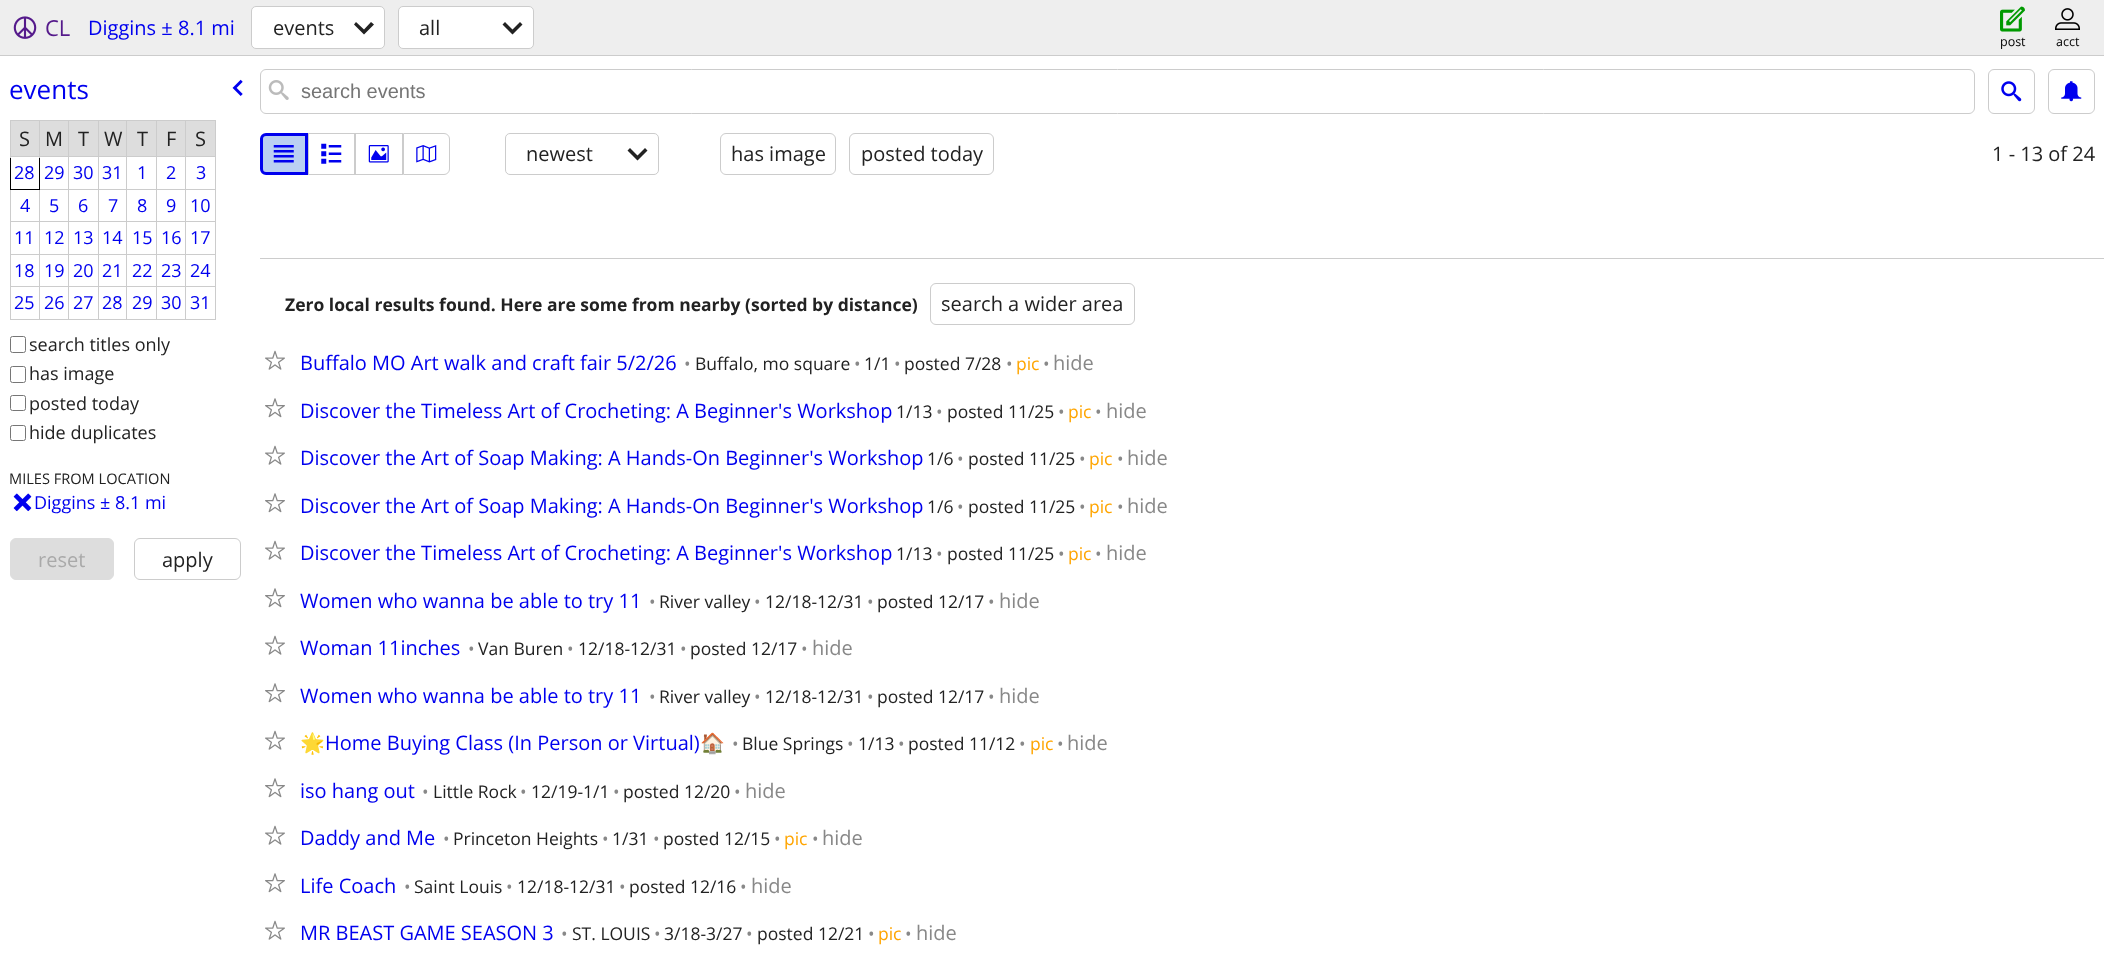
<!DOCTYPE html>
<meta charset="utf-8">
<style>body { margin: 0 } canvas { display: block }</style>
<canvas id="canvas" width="2104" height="953"></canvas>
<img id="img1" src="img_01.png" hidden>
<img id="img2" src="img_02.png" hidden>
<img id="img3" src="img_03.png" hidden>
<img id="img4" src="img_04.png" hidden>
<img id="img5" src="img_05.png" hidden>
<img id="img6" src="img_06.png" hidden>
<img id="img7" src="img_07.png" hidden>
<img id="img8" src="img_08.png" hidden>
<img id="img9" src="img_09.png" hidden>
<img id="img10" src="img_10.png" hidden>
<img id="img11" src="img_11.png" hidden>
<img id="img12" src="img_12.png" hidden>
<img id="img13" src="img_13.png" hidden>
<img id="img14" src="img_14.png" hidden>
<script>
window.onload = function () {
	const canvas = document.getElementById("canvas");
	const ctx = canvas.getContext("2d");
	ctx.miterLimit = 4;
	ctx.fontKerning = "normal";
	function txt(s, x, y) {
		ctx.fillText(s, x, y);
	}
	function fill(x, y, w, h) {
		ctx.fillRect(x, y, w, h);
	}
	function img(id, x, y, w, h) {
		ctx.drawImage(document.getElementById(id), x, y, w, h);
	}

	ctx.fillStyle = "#FFFFFF";
	fill(0, 0, 2104, 953);
	ctx.fillStyle = "#EEEEEE";
	fill(0, 0, 2104, 55);
	ctx.fillStyle = "#CCCCCC";
	fill(0, 55, 2104, 1);
	img("img1", 13, 16, 24, 23);
	ctx.fillStyle = "#FFFFFF";
	ctx.beginPath();
	ctx.roundRect(251.5, 6.5, 133, 42, 4.5);
	ctx.fill();
	ctx.strokeStyle = "#CCCCCC";
	ctx.stroke();
	ctx.fillStyle = "#222222";
	ctx.beginPath();
	ctx.moveTo(374, 24.5);
	ctx.lineTo(371, 22);
	ctx.lineTo(364, 29.5);
	ctx.lineTo(356, 22);
	ctx.lineTo(354, 24.5);
	ctx.lineTo(364, 34.5);
	ctx.closePath();
	ctx.fill();
	ctx.fillStyle = "#FFFFFF";
	ctx.beginPath();
	ctx.roundRect(398.5, 6.5, 135, 42, 4.5);
	ctx.fill();
	ctx.stroke();
	ctx.fillStyle = "#222222";
	ctx.beginPath();
	ctx.moveTo(522.5, 24.5);
	ctx.lineTo(520, 22);
	ctx.lineTo(512.5, 29.5);
	ctx.lineTo(505, 22);
	ctx.lineTo(502.5, 24.5);
	ctx.lineTo(512.5, 34.5);
	ctx.closePath();
	ctx.fill();
	img("img2", 2000, 6, 25, 26);
	img("img3", 2055, 8, 25, 22);
	img("img4", 232, 79, 11, 17);
	ctx.fillStyle = "#DDDDDD";
	fill(11, 121, 28, 35);
	ctx.fillStyle = "#CCCCCC";
	fill(185, 120, 31, 1);
	fill(185, 156, 31, 1);
	fill(185, 189, 31, 1);
	fill(185, 221, 31, 1);
	fill(185, 254, 31, 1);
	fill(185, 286, 31, 1);
	fill(215, 286, 1, 34);
	fill(185, 319, 31, 1);
	fill(185, 286, 1, 34);
	fill(156, 286, 30, 1);
	fill(185, 254, 1, 34);
	fill(156, 254, 30, 1);
	fill(185, 221, 1, 34);
	fill(156, 221, 30, 1);
	fill(185, 189, 1, 34);
	fill(156, 189, 30, 1);
	fill(185, 156, 1, 34);
	fill(156, 156, 30, 1);
	fill(185, 120, 1, 38);
	fill(156, 120, 30, 1);
	fill(156, 319, 30, 1);
	fill(156, 286, 1, 34);
	fill(126, 286, 32, 1);
	fill(156, 254, 1, 34);
	fill(126, 254, 32, 1);
	fill(156, 221, 1, 34);
	fill(126, 221, 32, 1);
	fill(156, 189, 1, 34);
	fill(126, 189, 32, 1);
	fill(156, 156, 1, 34);
	fill(126, 156, 32, 1);
	fill(156, 120, 1, 38);
	fill(126, 120, 32, 1);
	ctx.fillStyle = "#DDDDDD";
	fill(99, 121, 57, 35);
	ctx.fillStyle = "#CCCCCC";
	fill(126, 319, 32, 1);
	fill(126, 286, 1, 34);
	fill(98, 286, 30, 1);
	fill(126, 254, 1, 34);
	fill(98, 254, 30, 1);
	fill(126, 221, 1, 34);
	fill(98, 221, 30, 1);
	fill(126, 189, 1, 34);
	fill(98, 189, 30, 1);
	fill(126, 156, 1, 34);
	fill(98, 156, 30, 1);
	fill(126, 120, 1, 38);
	fill(98, 120, 30, 1);
	fill(98, 319, 30, 1);
	fill(98, 286, 1, 34);
	fill(68, 286, 31, 1);
	fill(98, 254, 1, 34);
	fill(68, 254, 31, 1);
	fill(98, 221, 1, 34);
	fill(68, 221, 31, 1);
	fill(98, 189, 1, 34);
	fill(68, 189, 31, 1);
	fill(98, 156, 1, 34);
	fill(68, 156, 31, 1);
	fill(98, 120, 1, 38);
	fill(68, 120, 31, 1);
	fill(68, 319, 31, 1);
	fill(68, 286, 1, 34);
	fill(39, 286, 30, 1);
	fill(68, 254, 1, 34);
	fill(39, 254, 30, 1);
	fill(68, 221, 1, 34);
	fill(39, 221, 30, 1);
	fill(68, 189, 1, 34);
	fill(39, 189, 30, 1);
	fill(68, 156, 1, 34);
	fill(68, 120, 1, 38);
	fill(39, 120, 30, 1);
	fill(39, 319, 30, 1);
	fill(39, 286, 1, 34);
	fill(10, 286, 30, 1);
	fill(39, 254, 1, 34);
	fill(10, 254, 30, 1);
	fill(39, 221, 1, 34);
	fill(10, 221, 30, 1);
	fill(39, 189, 1, 34);
	ctx.fillStyle = "#000000";
	fill(39, 156, 1, 34);
	ctx.fillStyle = "#CCCCCC";
	fill(39, 156, 30, 1);
	fill(39, 120, 1, 38);
	fill(10, 120, 30, 1);
	fill(10, 319, 30, 1);
	fill(10, 286, 1, 34);
	fill(10, 254, 1, 34);
	fill(10, 189, 1, 66);
	ctx.fillStyle = "#000000";
	fill(10, 189, 30, 1);
	fill(10, 156, 1, 34);
	ctx.fillStyle = "#CCCCCC";
	fill(10, 156, 30, 1);
	fill(10, 120, 1, 38);
	ctx.fillStyle = "#DDDDDD";
	fill(40, 121, 28, 35);
	fill(69, 121, 29, 35);
	fill(157, 121, 28, 35);
	fill(186, 121, 29, 35);
	ctx.fillStyle = "#CCCCCC";
	fill(215, 254, 1, 34);
	fill(215, 221, 1, 34);
	fill(215, 189, 1, 34);
	fill(215, 156, 1, 34);
	fill(215, 120, 1, 38);
	ctx.beginPath();
	ctx.roundRect(10.5, 336.5, 15, 16, 2);
	ctx.strokeStyle = "#767676";
	ctx.stroke();
	ctx.beginPath();
	ctx.roundRect(10.5, 366.5, 15, 16, 2);
	ctx.stroke();
	ctx.beginPath();
	ctx.roundRect(10.5, 395.5, 15, 15, 2);
	ctx.stroke();
	ctx.beginPath();
	ctx.roundRect(10.5, 425.5, 15, 15, 2);
	ctx.stroke();
	img("img5", 13, 493, 19, 19);
	ctx.fillStyle = "#DDDDDD";
	ctx.beginPath();
	ctx.roundRect(10.5, 538.5, 103, 41, 5.5);
	ctx.fill();
	ctx.strokeStyle = "#DDDDDD";
	ctx.stroke();
	ctx.beginPath();
	ctx.roundRect(134.5, 538.5, 106, 41, 5.5);
	ctx.strokeStyle = "#CCCCCC";
	ctx.stroke();
	ctx.beginPath();
	ctx.roundRect(260.5, 69.5, 1714, 44, 5.5);
	ctx.stroke();
	img("img6", 268, 80, 21, 20);
	ctx.beginPath();
	ctx.roundRect(1988.5, 69.5, 46, 44, 5.5);
	ctx.stroke();
	img("img7", 2001, 81, 21, 21);
	ctx.beginPath();
	ctx.roundRect(2048.5, 69.5, 46, 44, 5.5);
	ctx.stroke();
	img("img8", 2061, 81, 21, 21);
	ctx.fillStyle = "#BACFF2";
	ctx.beginPath();
	ctx.roundRect(261.5, 134.5, 45, 39, [4.5, 0, 0, 4.5]);
	ctx.fill();
	ctx.strokeStyle = "#0000EE";
	ctx.lineWidth = 3;
	ctx.stroke();
	img("img9", 273, 145, 21, 18);
	ctx.strokeStyle = "#CCCCCC";
	ctx.lineWidth = 1;
	ctx.strokeRect(308.5, 133.5, 46, 41);
	img("img10", 321, 143, 21, 21);
	ctx.strokeRect(355.5, 133.5, 47, 41);
	img("img11", 368, 145, 21, 18);
	ctx.beginPath();
	ctx.roundRect(403.5, 133.5, 46, 41, [0, 5.5, 5.5, 0]);
	ctx.stroke();
	img("img12", 416, 145, 21, 18);
	ctx.beginPath();
	ctx.roundRect(505.5, 133.5, 153, 41, 4.5);
	ctx.stroke();
	ctx.fillStyle = "#222222";
	ctx.beginPath();
	ctx.moveTo(647.5, 150.5);
	ctx.lineTo(645, 148);
	ctx.lineTo(637.5, 155.5);
	ctx.lineTo(630, 148);
	ctx.lineTo(627.5, 150.5);
	ctx.lineTo(637.5, 160.5);
	ctx.closePath();
	ctx.fill();
	ctx.beginPath();
	ctx.roundRect(720.5, 133.5, 115, 41, 5.5);
	ctx.stroke();
	ctx.beginPath();
	ctx.roundRect(849.5, 133.5, 144, 41, 5.5);
	ctx.stroke();
	ctx.fillStyle = "#CCCCCC";
	fill(260, 258, 1844, 1);
	ctx.beginPath();
	ctx.roundRect(930.5, 283.5, 204, 41, 5.5);
	ctx.stroke();
	img("img13", 265, 350, 20, 20);
	img("img14", 265, 398, 20, 20);
	img("img13", 265, 445, 20, 20);
	img("img14", 265, 493, 20, 20);
	img("img13", 265, 540, 20, 20);
	img("img14", 265, 588, 20, 20);
	img("img13", 265, 635, 20, 20);
	img("img14", 265, 683, 20, 20);
	img("img13", 265, 730, 20, 20);
	img("img14", 265, 778, 20, 20);
	img("img13", 265, 825, 20, 20);
	img("img14", 265, 873, 20, 20);
	img("img13", 265, 920, 20, 20);
	ctx.font = "22px Open Sans";
	ctx.fillStyle = "#551A8B";
	txt("CL", 45, 36);
	ctx.font = "20px Open Sans";
	ctx.fillStyle = "#0000EE";
	txt("Diggins ± 8.1 mi", 88, 35);
	ctx.fillStyle = "#222222";
	txt("events", 273, 35);
	txt("all", 419, 35);
	ctx.font = "12.5px Open Sans";
	ctx.fillStyle = "#000000";
	txt("post", 2000, 46);
	txt("acct", 2056, 46);
	ctx.font = "26px Open Sans";
	ctx.fillStyle = "#0000EE";
	txt("events", 9, 99);
	ctx.font = "20px Open Sans";
	ctx.fillStyle = "#222222";
	txt("S", 19, 146);
	txt("M", 45, 146);
	txt("T", 78, 146);
	txt("W", 104, 146);
	txt("T", 137, 146);
	txt("F", 166, 146);
	txt("S", 195, 146);
	ctx.font = "18px Open Sans";
	ctx.fillStyle = "#0000EE";
	txt("28", 14, 179);
	txt("29", 44, 179);
	txt("30", 73, 179);
	txt("31", 102, 179);
	txt("1", 137, 179);
	txt("2", 166, 179);
	txt("3", 196, 179);
	txt("4", 20, 212);
	txt("5", 49, 212);
	txt("6", 78, 212);
	txt("7", 108, 212);
	txt("8", 137, 212);
	txt("9", 166, 212);
	txt("10", 190, 212);
	txt("11", 14, 244);
	txt("12", 44, 244);
	txt("13", 73, 244);
	txt("14", 102, 244);
	txt("15", 132, 244);
	txt("16", 161, 244);
	txt("17", 190, 244);
	txt("18", 14, 277);
	txt("19", 44, 277);
	txt("20", 73, 277);
	txt("21", 102, 277);
	txt("22", 132, 277);
	txt("23", 161, 277);
	txt("24", 190, 277);
	txt("25", 14, 309);
	txt("26", 44, 309);
	txt("27", 73, 309);
	txt("28", 102, 309);
	txt("29", 132, 309);
	txt("30", 161, 309);
	txt("31", 190, 309);
	ctx.fillStyle = "#222222";
	txt("search titles only", 29, 351);
	txt("has image", 29, 380);
	txt("posted today", 29, 410);
	txt("hide duplicates", 29, 439);
	ctx.font = "14.6px Open Sans";
	txt("MILES FROM LOCATION", 9, 484);
	ctx.font = "18px Open Sans";
	ctx.fillStyle = "#0000EE";
	txt("Diggins ± 8.1 mi", 34, 509);
	ctx.font = "20px Open Sans";
	ctx.fillStyle = "#A9A9A9";
	txt("reset", 38, 567);
	ctx.fillStyle = "#222222";
	txt("apply", 162, 567);
	ctx.font = "20px Liberation Sans";
	ctx.fillStyle = "#757575";
	txt("search events", 301, 98);
	ctx.font = "20px Open Sans";
	ctx.fillStyle = "#222222";
	txt("newest", 526, 161);
	txt("has image", 731, 161);
	txt("posted today", 861, 161);
	txt("1 - 13 of 24", 1992, 161);
	ctx.font = "bold 17.5px Open Sans";
	txt("Zero local results found. Here are some from nearby (sorted by distance)", 285, 311);
	ctx.font = "20px Open Sans";
	txt("search a wider area", 941, 311);
	ctx.fillStyle = "#0000EE";
	txt("Buffalo MO Art walk and craft fair 5/2/26", 300, 370);
	ctx.font = "17.5px Open Sans";
	ctx.fillStyle = "#888888";
	txt("•", 684, 370);
	ctx.fillStyle = "#222222";
	txt("Buffalo, mo square", 695, 370);
	ctx.fillStyle = "#888888";
	txt("•", 854, 370);
	ctx.fillStyle = "#222222";
	txt("1/1", 864, 370);
	ctx.fillStyle = "#888888";
	txt("•", 894, 370);
	ctx.fillStyle = "#222222";
	txt("posted 7/28", 904, 370);
	ctx.fillStyle = "#888888";
	txt("•", 1006, 370);
	ctx.fillStyle = "#FFA500";
	txt("pic", 1016, 370);
	ctx.fillStyle = "#888888";
	txt("•", 1043, 370);
	ctx.font = "20px Open Sans";
	txt("hide", 1053, 370);
	ctx.fillStyle = "#0000EE";
	txt("Discover the Timeless Art of Crocheting: A Beginner's Workshop", 300, 418);
	ctx.font = "17.5px Open Sans";
	ctx.fillStyle = "#222222";
	txt("1/13", 896, 418);
	ctx.fillStyle = "#888888";
	txt("•", 936, 418);
	ctx.fillStyle = "#222222";
	txt("posted 11/25", 947, 418);
	ctx.fillStyle = "#888888";
	txt("•", 1058, 418);
	ctx.fillStyle = "#FFA500";
	txt("pic", 1068, 418);
	ctx.fillStyle = "#888888";
	txt("•", 1095, 418);
	ctx.font = "20px Open Sans";
	txt("hide", 1106, 418);
	ctx.fillStyle = "#0000EE";
	txt("Discover the Art of Soap Making: A Hands-On Beginner's Workshop", 300, 465);
	ctx.font = "17.5px Open Sans";
	ctx.fillStyle = "#222222";
	txt("1/6", 927, 465);
	ctx.fillStyle = "#888888";
	txt("•", 957, 465);
	ctx.fillStyle = "#222222";
	txt("posted 11/25", 968, 465);
	ctx.fillStyle = "#888888";
	txt("•", 1079, 465);
	ctx.fillStyle = "#FFA500";
	txt("pic", 1089, 465);
	ctx.fillStyle = "#888888";
	txt("•", 1117, 465);
	ctx.font = "20px Open Sans";
	txt("hide", 1127, 465);
	ctx.fillStyle = "#0000EE";
	txt("Discover the Art of Soap Making: A Hands-On Beginner's Workshop", 300, 513);
	ctx.font = "17.5px Open Sans";
	ctx.fillStyle = "#222222";
	txt("1/6", 927, 513);
	ctx.fillStyle = "#888888";
	txt("•", 957, 513);
	ctx.fillStyle = "#222222";
	txt("posted 11/25", 968, 513);
	ctx.fillStyle = "#888888";
	txt("•", 1079, 513);
	ctx.fillStyle = "#FFA500";
	txt("pic", 1089, 513);
	ctx.fillStyle = "#888888";
	txt("•", 1117, 513);
	ctx.font = "20px Open Sans";
	txt("hide", 1127, 513);
	ctx.fillStyle = "#0000EE";
	txt("Discover the Timeless Art of Crocheting: A Beginner's Workshop", 300, 560);
	ctx.font = "17.5px Open Sans";
	ctx.fillStyle = "#222222";
	txt("1/13", 896, 560);
	ctx.fillStyle = "#888888";
	txt("•", 936, 560);
	ctx.fillStyle = "#222222";
	txt("posted 11/25", 947, 560);
	ctx.fillStyle = "#888888";
	txt("•", 1058, 560);
	ctx.fillStyle = "#FFA500";
	txt("pic", 1068, 560);
	ctx.fillStyle = "#888888";
	txt("•", 1095, 560);
	ctx.font = "20px Open Sans";
	txt("hide", 1106, 560);
	ctx.fillStyle = "#0000EE";
	txt("Women who wanna be able to try 11", 300, 608);
	ctx.font = "17.5px Open Sans";
	ctx.fillStyle = "#888888";
	txt("•", 649, 608);
	ctx.fillStyle = "#222222";
	txt("River valley", 659, 608);
	ctx.fillStyle = "#888888";
	txt("•", 754, 608);
	ctx.fillStyle = "#222222";
	txt("12/18-12/31", 765, 608);
	ctx.fillStyle = "#888888";
	txt("•", 867, 608);
	ctx.fillStyle = "#222222";
	txt("posted 12/17", 877, 608);
	ctx.fillStyle = "#888888";
	txt("•", 988, 608);
	ctx.font = "20px Open Sans";
	txt("hide", 999, 608);
	ctx.fillStyle = "#0000EE";
	txt("Woman 11inches", 300, 655);
	ctx.font = "17.5px Open Sans";
	ctx.fillStyle = "#888888";
	txt("•", 468, 655);
	ctx.fillStyle = "#222222";
	txt("Van Buren", 478, 655);
	ctx.fillStyle = "#888888";
	txt("•", 567, 655);
	ctx.fillStyle = "#222222";
	txt("12/18-12/31", 578, 655);
	ctx.fillStyle = "#888888";
	txt("•", 680, 655);
	ctx.fillStyle = "#222222";
	txt("posted 12/17", 690, 655);
	ctx.fillStyle = "#888888";
	txt("•", 801, 655);
	ctx.font = "20px Open Sans";
	txt("hide", 812, 655);
	ctx.fillStyle = "#0000EE";
	txt("Women who wanna be able to try 11", 300, 703);
	ctx.font = "17.5px Open Sans";
	ctx.fillStyle = "#888888";
	txt("•", 649, 703);
	ctx.fillStyle = "#222222";
	txt("River valley", 659, 703);
	ctx.fillStyle = "#888888";
	txt("•", 754, 703);
	ctx.fillStyle = "#222222";
	txt("12/18-12/31", 765, 703);
	ctx.fillStyle = "#888888";
	txt("•", 867, 703);
	ctx.fillStyle = "#222222";
	txt("posted 12/17", 877, 703);
	ctx.fillStyle = "#888888";
	txt("•", 988, 703);
	ctx.font = "20px Open Sans";
	txt("hide", 999, 703);
	ctx.font = "20px Noto Color Emoji";
	ctx.fillStyle = "#0000EE";
	txt("🌟", 300, 750);
	ctx.font = "20px Open Sans";
	txt("Home Buying Class (In Person or Virtual)", 325, 750);
	ctx.font = "20px Noto Color Emoji";
	txt("🏠", 700, 750);
	ctx.font = "17.5px Open Sans";
	ctx.fillStyle = "#888888";
	txt("•", 732, 750);
	ctx.fillStyle = "#222222";
	txt("Blue Springs", 742, 750);
	ctx.fillStyle = "#888888";
	txt("•", 847, 750);
	ctx.fillStyle = "#222222";
	txt("1/13", 858, 750);
	ctx.fillStyle = "#888888";
	txt("•", 898, 750);
	ctx.fillStyle = "#222222";
	txt("posted 11/12", 908, 750);
	ctx.fillStyle = "#888888";
	txt("•", 1019, 750);
	ctx.fillStyle = "#FFA500";
	txt("pic", 1030, 750);
	ctx.fillStyle = "#888888";
	txt("•", 1057, 750);
	ctx.font = "20px Open Sans";
	txt("hide", 1067, 750);
	ctx.fillStyle = "#0000EE";
	txt("iso hang out", 300, 798);
	ctx.font = "17.5px Open Sans";
	ctx.fillStyle = "#888888";
	txt("•", 422, 798);
	ctx.fillStyle = "#222222";
	txt("Little Rock", 433, 798);
	ctx.fillStyle = "#888888";
	txt("•", 520, 798);
	ctx.fillStyle = "#222222";
	txt("12/19-1/1", 531, 798);
	ctx.fillStyle = "#888888";
	txt("•", 613, 798);
	ctx.fillStyle = "#222222";
	txt("posted 12/20", 623, 798);
	ctx.fillStyle = "#888888";
	txt("•", 734, 798);
	ctx.font = "20px Open Sans";
	txt("hide", 745, 798);
	ctx.fillStyle = "#0000EE";
	txt("Daddy and Me", 300, 845);
	ctx.font = "17.5px Open Sans";
	ctx.fillStyle = "#888888";
	txt("•", 443, 845);
	ctx.fillStyle = "#222222";
	txt("Princeton Heights", 453, 845);
	ctx.fillStyle = "#888888";
	txt("•", 602, 845);
	ctx.fillStyle = "#222222";
	txt("1/31", 612, 845);
	ctx.fillStyle = "#888888";
	txt("•", 653, 845);
	ctx.fillStyle = "#222222";
	txt("posted 12/15", 663, 845);
	ctx.fillStyle = "#888888";
	txt("•", 774, 845);
	ctx.fillStyle = "#FFA500";
	txt("pic", 784, 845);
	ctx.fillStyle = "#888888";
	txt("•", 812, 845);
	ctx.font = "20px Open Sans";
	txt("hide", 822, 845);
	ctx.fillStyle = "#0000EE";
	txt("Life Coach", 300, 893);
	ctx.font = "17.5px Open Sans";
	ctx.fillStyle = "#888888";
	txt("•", 404, 893);
	ctx.fillStyle = "#222222";
	txt("Saint Louis", 414, 893);
	ctx.fillStyle = "#888888";
	txt("•", 506, 893);
	ctx.fillStyle = "#222222";
	txt("12/18-12/31", 517, 893);
	ctx.fillStyle = "#888888";
	txt("•", 619, 893);
	ctx.fillStyle = "#222222";
	txt("posted 12/16", 629, 893);
	ctx.fillStyle = "#888888";
	txt("•", 740, 893);
	ctx.font = "20px Open Sans";
	txt("hide", 751, 893);
	ctx.fillStyle = "#0000EE";
	txt("MR BEAST GAME SEASON 3", 300, 940);
	ctx.font = "17.5px Open Sans";
	ctx.fillStyle = "#888888";
	txt("•", 561, 940);
	ctx.fillStyle = "#222222";
	txt("ST. LOUIS", 572, 940);
	ctx.fillStyle = "#888888";
	txt("•", 654, 940);
	ctx.fillStyle = "#222222";
	txt("3/18-3/27", 664, 940);
	ctx.fillStyle = "#888888";
	txt("•", 746, 940);
	ctx.fillStyle = "#222222";
	txt("posted 12/21", 757, 940);
	ctx.fillStyle = "#888888";
	txt("•", 868, 940);
	ctx.fillStyle = "#FFA500";
	txt("pic", 878, 940);
	ctx.fillStyle = "#888888";
	txt("•", 905, 940);
	ctx.font = "20px Open Sans";
	txt("hide", 916, 940);
};
</script>
